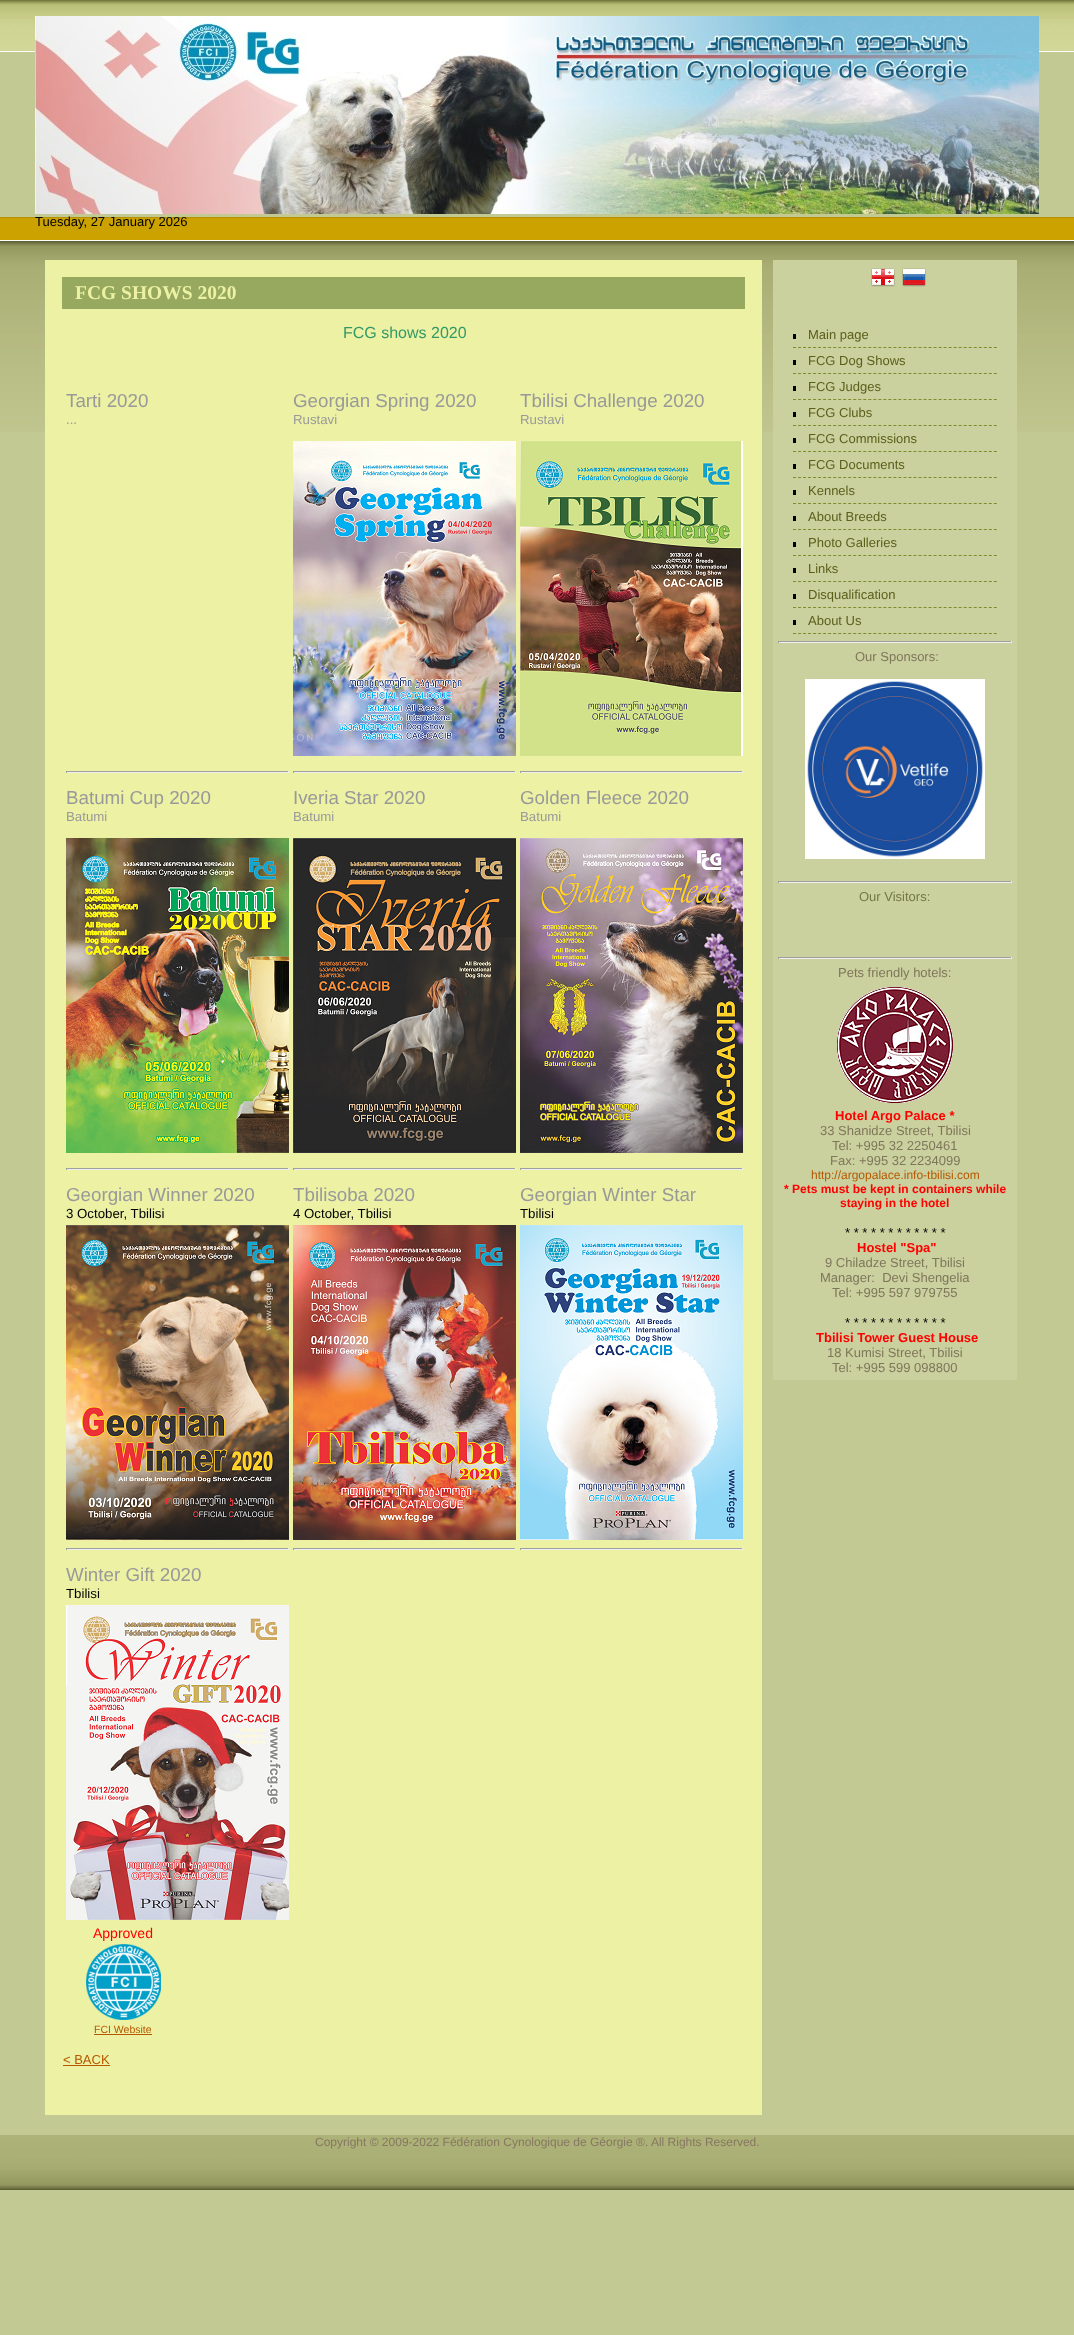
<!DOCTYPE html>
<meta charset="utf-8">
<style>body { margin: 0 } canvas { display: block }</style>
<canvas id="canvas" width="1074" height="2335"></canvas>
<img id="img1" src="img_01.png" hidden>
<img id="img2" src="img_02.png" hidden>
<img id="img3" src="img_03.png" hidden>
<img id="img4" src="img_04.png" hidden>
<img id="img5" src="img_05.png" hidden>
<img id="img6" src="img_06.png" hidden>
<img id="img7" src="img_07.png" hidden>
<img id="img8" src="img_08.png" hidden>
<img id="img9" src="img_09.png" hidden>
<img id="img10" src="img_10.png" hidden>
<img id="img11" src="img_11.png" hidden>
<img id="img12" src="img_12.png" hidden>
<img id="img13" src="img_13.png" hidden>
<img id="img14" src="img_14.png" hidden>
<img id="img15" src="img_15.png" hidden>
<img id="img16" src="img_16.png" hidden>
<img id="img17" src="img_17.png" hidden>
<img id="img18" src="img_18.png" hidden>
<script>
window.onload = function () {
	const canvas = document.getElementById("canvas");
	const ctx = canvas.getContext("2d");
	ctx.miterLimit = 4;
	ctx.fontKerning = "normal";
	function txt(s, x, y) {
		ctx.fillText(s, x, y);
	}
	function fill(x, y, w, h) {
		ctx.fillRect(x, y, w, h);
	}
	function img(id, x, y, w, h) {
		ctx.drawImage(document.getElementById(id), x, y, w, h);
	}

	ctx.fillStyle = "#C3C993";
	fill(0, 0, 1074, 2335);
	img("img1", 0, 0, 1074, 52);
	img("img2", 35, 16, 1004, 198);
	img("img3", 0, 217, 1074, 215);
	ctx.fillStyle = "#ECF1A4";
	fill(45, 260, 717, 1855);
	ctx.fillStyle = "#97A85F";
	fill(62, 277, 683, 32);
	ctx.fillStyle = "#9F9F9F";
	fill(66, 771, 223, 1);
	ctx.fillStyle = "#EEEEEE";
	fill(288, 771, 1, 2);
	fill(66, 772, 223, 1);
	ctx.fillStyle = "#9F9F9F";
	fill(66, 771, 1, 2);
	img("img4", 293, 441, 223, 315);
	fill(293, 771, 223, 1);
	ctx.fillStyle = "#EEEEEE";
	fill(515, 771, 1, 2);
	fill(293, 772, 223, 1);
	ctx.fillStyle = "#9F9F9F";
	fill(293, 771, 1, 2);
	img("img5", 520, 441, 223, 315);
	fill(520, 771, 223, 1);
	ctx.fillStyle = "#EEEEEE";
	fill(742, 771, 1, 2);
	fill(520, 772, 223, 1);
	ctx.fillStyle = "#9F9F9F";
	fill(520, 771, 1, 2);
	img("img6", 66, 838, 223, 315);
	fill(66, 1168, 223, 1);
	ctx.fillStyle = "#EEEEEE";
	fill(288, 1168, 1, 2);
	fill(66, 1169, 223, 1);
	ctx.fillStyle = "#9F9F9F";
	fill(66, 1168, 1, 2);
	img("img7", 293, 838, 223, 315);
	fill(293, 1168, 223, 1);
	ctx.fillStyle = "#EEEEEE";
	fill(515, 1168, 1, 2);
	fill(293, 1169, 223, 1);
	ctx.fillStyle = "#9F9F9F";
	fill(293, 1168, 1, 2);
	img("img8", 520, 838, 223, 315);
	fill(520, 1168, 223, 1);
	ctx.fillStyle = "#EEEEEE";
	fill(742, 1168, 1, 2);
	fill(520, 1169, 223, 1);
	ctx.fillStyle = "#9F9F9F";
	fill(520, 1168, 1, 2);
	img("img9", 66, 1225, 223, 315);
	fill(66, 1548, 223, 1);
	ctx.fillStyle = "#EEEEEE";
	fill(288, 1548, 1, 2);
	fill(66, 1549, 223, 1);
	ctx.fillStyle = "#9F9F9F";
	fill(66, 1548, 1, 2);
	img("img10", 293, 1225, 223, 315);
	fill(293, 1548, 223, 1);
	ctx.fillStyle = "#EEEEEE";
	fill(515, 1548, 1, 2);
	fill(293, 1549, 223, 1);
	ctx.fillStyle = "#9F9F9F";
	fill(293, 1548, 1, 2);
	img("img11", 520, 1225, 223, 315);
	fill(520, 1548, 223, 1);
	ctx.fillStyle = "#EEEEEE";
	fill(742, 1548, 1, 2);
	fill(520, 1549, 223, 1);
	ctx.fillStyle = "#9F9F9F";
	fill(520, 1548, 1, 2);
	img("img12", 66, 1605, 223, 315);
	img("img13", 86, 1944, 75, 76);
	ctx.fillStyle = "#B55900";
	fill(94, 2034, 58, 1);
	fill(63, 2065, 47, 1);
	ctx.fillStyle = "#CBD09F";
	fill(773, 260, 244, 1120);
	img("img14", 871, 268, 24, 19);
	img("img15", 902, 268, 24, 19);
	ctx.fillStyle = "#000000";
	fill(793, 334, 3, 5);
	ctx.beginPath();
	ctx.moveTo(793, 347.5);
	ctx.lineTo(997, 347.5);
	ctx.strokeStyle = "#7F8B2D";
	ctx.setLineDash([3, 2.02]);
	ctx.stroke();
	fill(793, 360, 3, 5);
	ctx.beginPath();
	ctx.moveTo(793, 373.5);
	ctx.lineTo(997, 373.5);
	ctx.stroke();
	fill(793, 386, 3, 5);
	ctx.beginPath();
	ctx.moveTo(793, 399.5);
	ctx.lineTo(997, 399.5);
	ctx.stroke();
	fill(793, 412, 3, 5);
	ctx.beginPath();
	ctx.moveTo(793, 425.5);
	ctx.lineTo(997, 425.5);
	ctx.stroke();
	fill(793, 438, 3, 5);
	ctx.beginPath();
	ctx.moveTo(793, 451.5);
	ctx.lineTo(997, 451.5);
	ctx.stroke();
	fill(793, 464, 3, 5);
	ctx.beginPath();
	ctx.moveTo(793, 477.5);
	ctx.lineTo(997, 477.5);
	ctx.stroke();
	fill(793, 490, 3, 5);
	ctx.beginPath();
	ctx.moveTo(793, 503.5);
	ctx.lineTo(997, 503.5);
	ctx.stroke();
	fill(793, 516, 3, 5);
	ctx.beginPath();
	ctx.moveTo(793, 529.5);
	ctx.lineTo(997, 529.5);
	ctx.stroke();
	fill(793, 542, 3, 5);
	ctx.beginPath();
	ctx.moveTo(793, 555.5);
	ctx.lineTo(997, 555.5);
	ctx.stroke();
	fill(793, 568, 3, 5);
	ctx.beginPath();
	ctx.moveTo(793, 581.5);
	ctx.lineTo(997, 581.5);
	ctx.stroke();
	fill(793, 594, 3, 5);
	ctx.beginPath();
	ctx.moveTo(793, 607.5);
	ctx.lineTo(997, 607.5);
	ctx.stroke();
	fill(793, 620, 3, 5);
	ctx.beginPath();
	ctx.moveTo(793, 633.5);
	ctx.lineTo(997, 633.5);
	ctx.stroke();
	ctx.fillStyle = "#9F9F9F";
	fill(778, 641, 234, 1);
	ctx.fillStyle = "#EEEEEE";
	fill(1011, 641, 1, 2);
	fill(778, 642, 234, 1);
	ctx.fillStyle = "#9F9F9F";
	fill(778, 641, 1, 2);
	img("img16", 805, 679, 180, 180);
	fill(778, 881, 234, 1);
	ctx.fillStyle = "#EEEEEE";
	fill(1011, 881, 1, 2);
	fill(778, 882, 234, 1);
	ctx.fillStyle = "#9F9F9F";
	fill(778, 881, 1, 2);
	fill(778, 957, 234, 1);
	ctx.fillStyle = "#EEEEEE";
	fill(1011, 957, 1, 2);
	fill(778, 958, 234, 1);
	ctx.fillStyle = "#9F9F9F";
	fill(778, 957, 1, 2);
	img("img17", 837, 987, 116, 116);
	img("img18", 0, 2135, 1074, 55);
	ctx.font = "13px Liberation Sans";
	ctx.fillStyle = "#000000";
	txt("Tuesday, 27 January 2026", 35, 226);
	ctx.font = "bold 19.5px Liberation Serif";
	ctx.fillStyle = "#ECF1A4";
	txt("FCG SHOWS 2020", 75, 299);
	ctx.font = "16px Liberation Sans";
	ctx.fillStyle = "#339966";
	txt("FCG shows 2020", 343, 338);
	ctx.font = "18.75px Liberation Sans";
	ctx.fillStyle = "#999999";
	txt("Tarti 2020", 66, 407);
	ctx.font = "13.25px Liberation Sans";
	txt("...", 66, 424);
	ctx.font = "18.75px Liberation Sans";
	txt("Georgian Spring 2020", 293, 407);
	ctx.font = "13.25px Liberation Sans";
	txt("Rustavi", 293, 424);
	ctx.font = "18.75px Liberation Sans";
	txt("Tbilisi Challenge 2020", 520, 407);
	ctx.font = "13.25px Liberation Sans";
	txt("Rustavi", 520, 424);
	ctx.font = "18.75px Liberation Sans";
	txt("Batumi Cup 2020", 66, 804);
	ctx.font = "13.25px Liberation Sans";
	txt("Batumi", 66, 821);
	ctx.font = "18.75px Liberation Sans";
	txt("Iveria Star 2020", 293, 804);
	ctx.font = "13.25px Liberation Sans";
	txt("Batumi", 293, 821);
	ctx.font = "18.75px Liberation Sans";
	txt("Golden Fleece 2020", 520, 804);
	ctx.font = "13.25px Liberation Sans";
	txt("Batumi", 520, 821);
	ctx.font = "18.75px Liberation Sans";
	txt("Georgian Winner 2020", 66, 1201);
	ctx.font = "13.25px Liberation Sans";
	ctx.fillStyle = "#000000";
	txt("3 October, Tbilisi", 66, 1218);
	ctx.font = "18.75px Liberation Sans";
	ctx.fillStyle = "#999999";
	txt("Tbilisoba 2020", 293, 1201);
	ctx.font = "13.25px Liberation Sans";
	ctx.fillStyle = "#000000";
	txt("4 October, Tbilisi", 293, 1218);
	ctx.font = "18.75px Liberation Sans";
	ctx.fillStyle = "#999999";
	txt("Georgian Winter Star", 520, 1201);
	ctx.font = "13.25px Liberation Sans";
	ctx.fillStyle = "#000000";
	txt("Tbilisi", 520, 1218);
	ctx.font = "18.75px Liberation Sans";
	ctx.fillStyle = "#999999";
	txt("Winter Gift 2020", 66, 1581);
	ctx.font = "13.25px Liberation Sans";
	ctx.fillStyle = "#000000";
	txt("Tbilisi", 66, 1598);
	ctx.font = "14px Liberation Sans";
	ctx.fillStyle = "#FF0000";
	txt("Approved", 93, 1938);
	ctx.font = "10.5px Liberation Sans";
	ctx.fillStyle = "#B55900";
	txt("FCI Website", 94, 2033);
	ctx.font = "13px Liberation Sans";
	txt("< BACK", 63, 2064);
	ctx.fillStyle = "#5A5F1A";
	txt("Main page", 808, 339);
	txt("FCG Dog Shows", 808, 365);
	txt("FCG Judges", 808, 391);
	txt("FCG Clubs", 808, 417);
	txt("FCG Commissions", 808, 443);
	txt("FCG Documents", 808, 469);
	txt("Kennels", 808, 495);
	txt("About Breeds", 808, 521);
	txt("Photo Galleries", 808, 547);
	txt("Links", 808, 573);
	txt("Disqualification", 808, 599);
	txt("About Us", 808, 625);
	ctx.fillStyle = "#7F775A";
	txt("Our Sponsors:", 855, 661);
	ctx.fillStyle = "#727747";
	txt("Our Visitors:", 859, 901);
	ctx.fillStyle = "#7F775A";
	txt("Pets friendly hotels:", 838, 977);
	ctx.font = "bold 13px Liberation Sans";
	ctx.fillStyle = "#FF0000";
	txt("Hotel Argo Palace *", 835, 1120);
	ctx.font = "13px Liberation Sans";
	ctx.fillStyle = "#7F775A";
	txt("33 Shanidze Street, Tbilisi", 820, 1135);
	txt("Tel: +995 32 2250461", 832, 1150);
	txt("Fax: +995 32 2234099", 830, 1165);
	ctx.font = "12px Liberation Sans";
	ctx.fillStyle = "#B55900";
	txt("http://argopalace.info-tbilisi.com", 811, 1179);
	ctx.font = "bold 12px Liberation Sans";
	ctx.fillStyle = "#FF0000";
	txt("* Pets must be kept in containers while", 784, 1193);
	txt("staying in the hotel", 840, 1207);
	ctx.font = "13px Liberation Sans";
	ctx.fillStyle = "#000000";
	txt("* * * * * * * * * * * *", 845, 1237);
	ctx.font = "bold 13px Liberation Sans";
	ctx.fillStyle = "#FF0000";
	txt("Hostel \"Spa\"", 857, 1252);
	ctx.font = "13px Liberation Sans";
	ctx.fillStyle = "#7F775A";
	txt("9 Chiladze Street, Tbilisi", 825, 1267);
	txt("Manager:  Devi Shengelia", 820, 1282);
	txt("Tel: +995 597 979755", 832, 1297);
	ctx.fillStyle = "#000000";
	txt("* * * * * * * * * * * *", 845, 1327);
	ctx.font = "bold 13px Liberation Sans";
	ctx.fillStyle = "#FF0000";
	txt("Tbilisi Tower Guest House", 816, 1342);
	ctx.font = "13px Liberation Sans";
	ctx.fillStyle = "#7F775A";
	txt("18 Kumisi Street, Tbilisi", 827, 1357);
	txt("Tel: +995 599 098800", 832, 1372);
	ctx.font = "12px Liberation Sans";
	ctx.fillStyle = "#867762";
	txt("Copyright © 2009-2022 Fédération Cynologique de Géorgie ®. All Rights Reserved.", 315, 2146);
};
</script>
